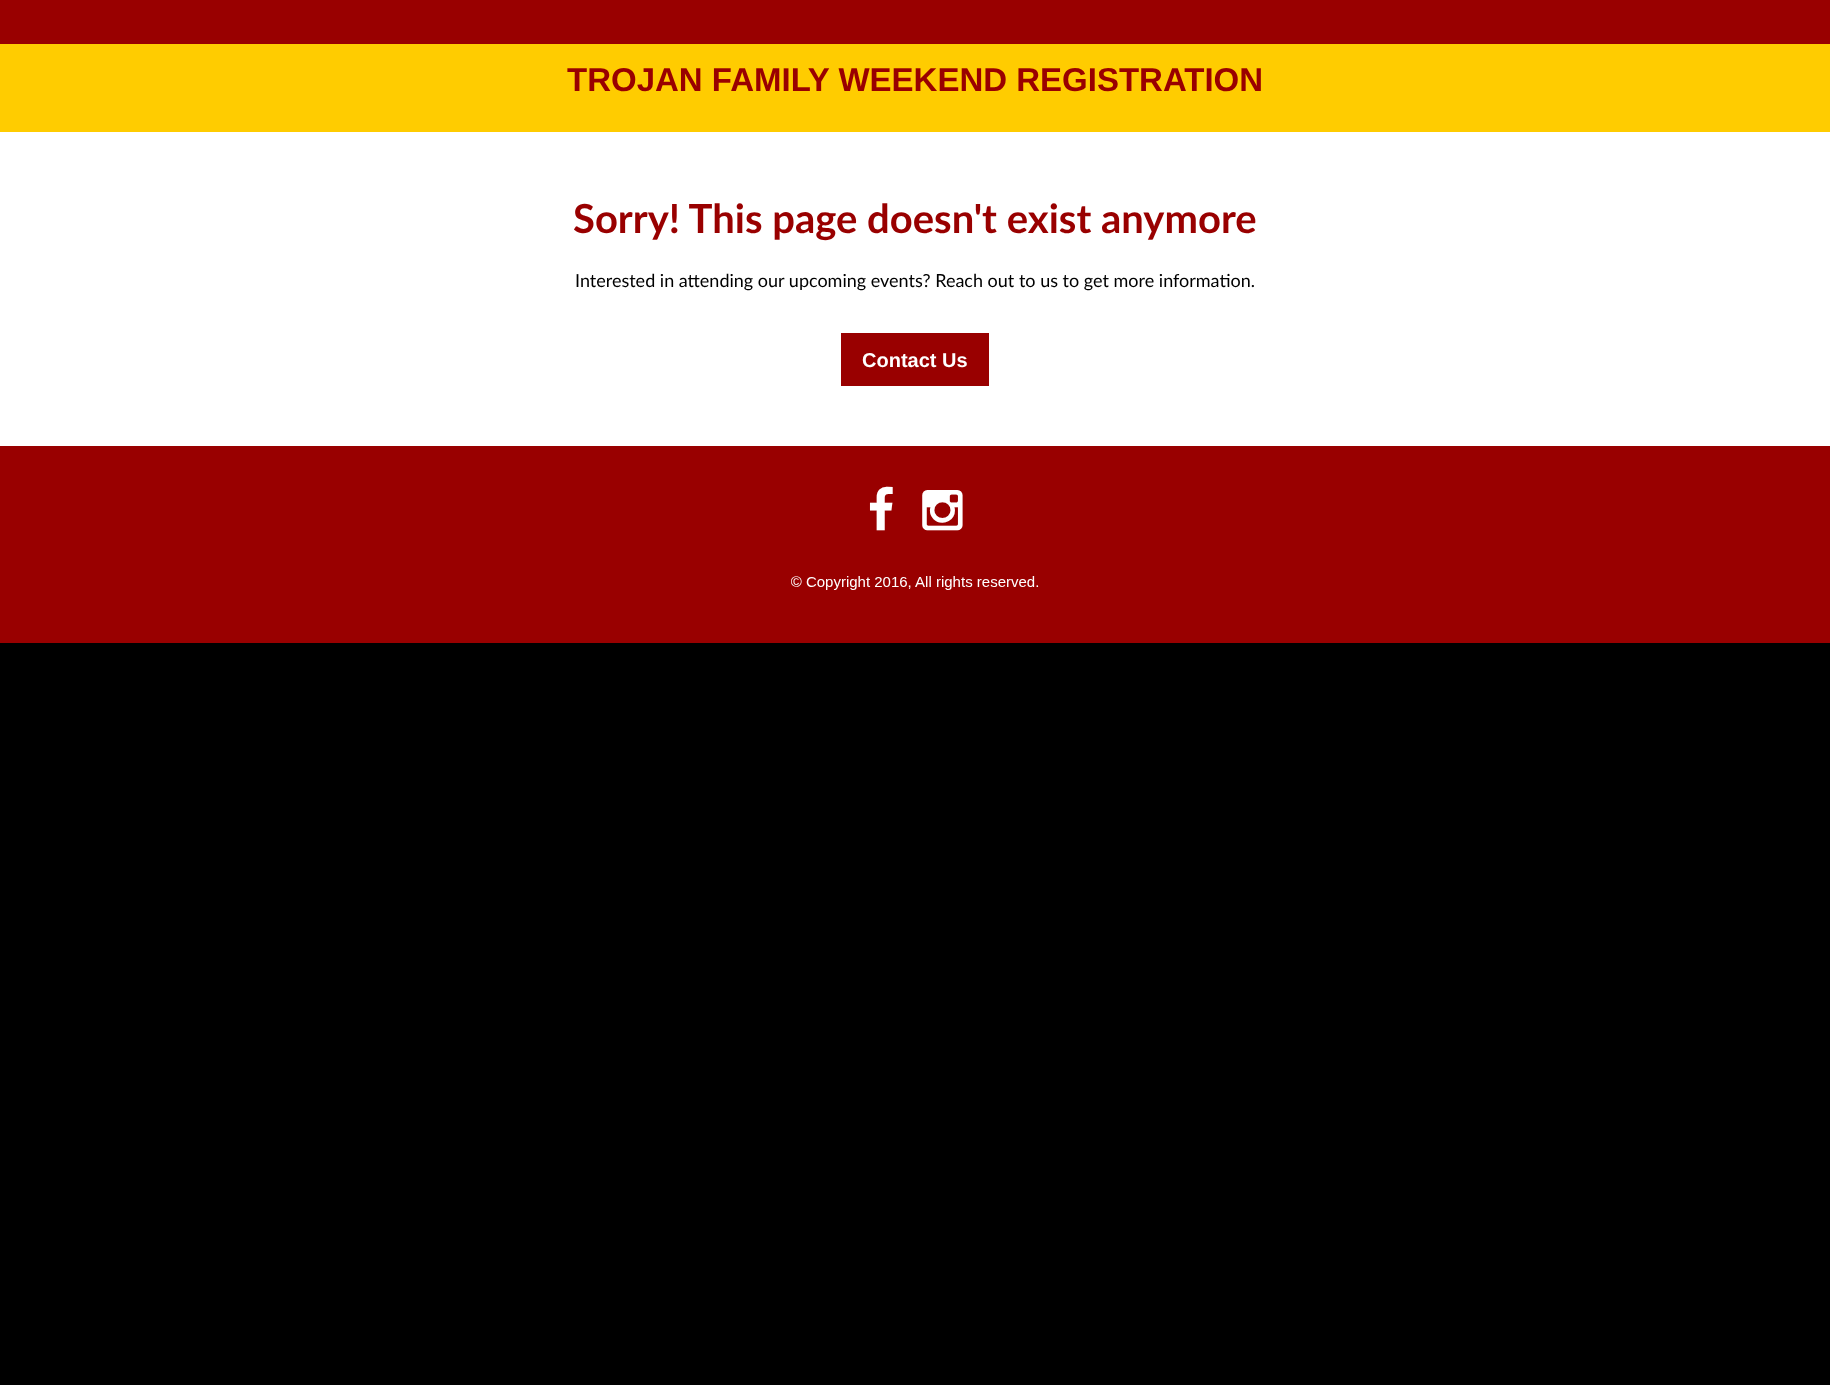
<!DOCTYPE html>
<meta charset="utf-8">
<style>body { margin: 0 } canvas { display: block }</style>
<canvas id="canvas" width="1830" height="1385"></canvas>
<img id="img1" src="img_01.png" hidden>
<script>
window.onload = function () {
	const canvas = document.getElementById("canvas");
	const ctx = canvas.getContext("2d");
	ctx.miterLimit = 4;
	ctx.fontKerning = "normal";
	function txt(s, x, y) {
		ctx.fillText(s, x, y);
	}
	function fill(x, y, w, h) {
		ctx.fillRect(x, y, w, h);
	}
	function img(id, x, y, w, h) {
		ctx.drawImage(document.getElementById(id), x, y, w, h);
	}

	ctx.fillStyle = "#000000";
	fill(0, 0, 1830, 1385);
	ctx.fillStyle = "#990000";
	fill(0, 0, 1830, 44);
	ctx.fillStyle = "#FFCC00";
	fill(0, 44, 1830, 88);
	ctx.fillStyle = "#FFFFFF";
	fill(0, 132, 1830, 314);
	ctx.fillStyle = "#990000";
	fill(841, 333, 148, 53);
	fill(0, 446, 1830, 197);
	img("img1", 791, 486, 248, 104);
	ctx.font = "bold 33px Liberation Sans";
	txt("TROJAN FAMILY WEEKEND REGISTRATION", 567, 91);
	ctx.font = "bold 40px Lato";
	txt("Sorry! This page doesn't exist anymore", 573, 233);
	ctx.font = "18px Lato";
	ctx.fillStyle = "#000000";
	txt("Interested in attending our upcoming events? Reach out to us to get more information.", 575, 287);
	ctx.font = "bold 20px Liberation Sans";
	ctx.fillStyle = "#FFFFFF";
	txt("Contact Us", 862, 367);
};
</script>
